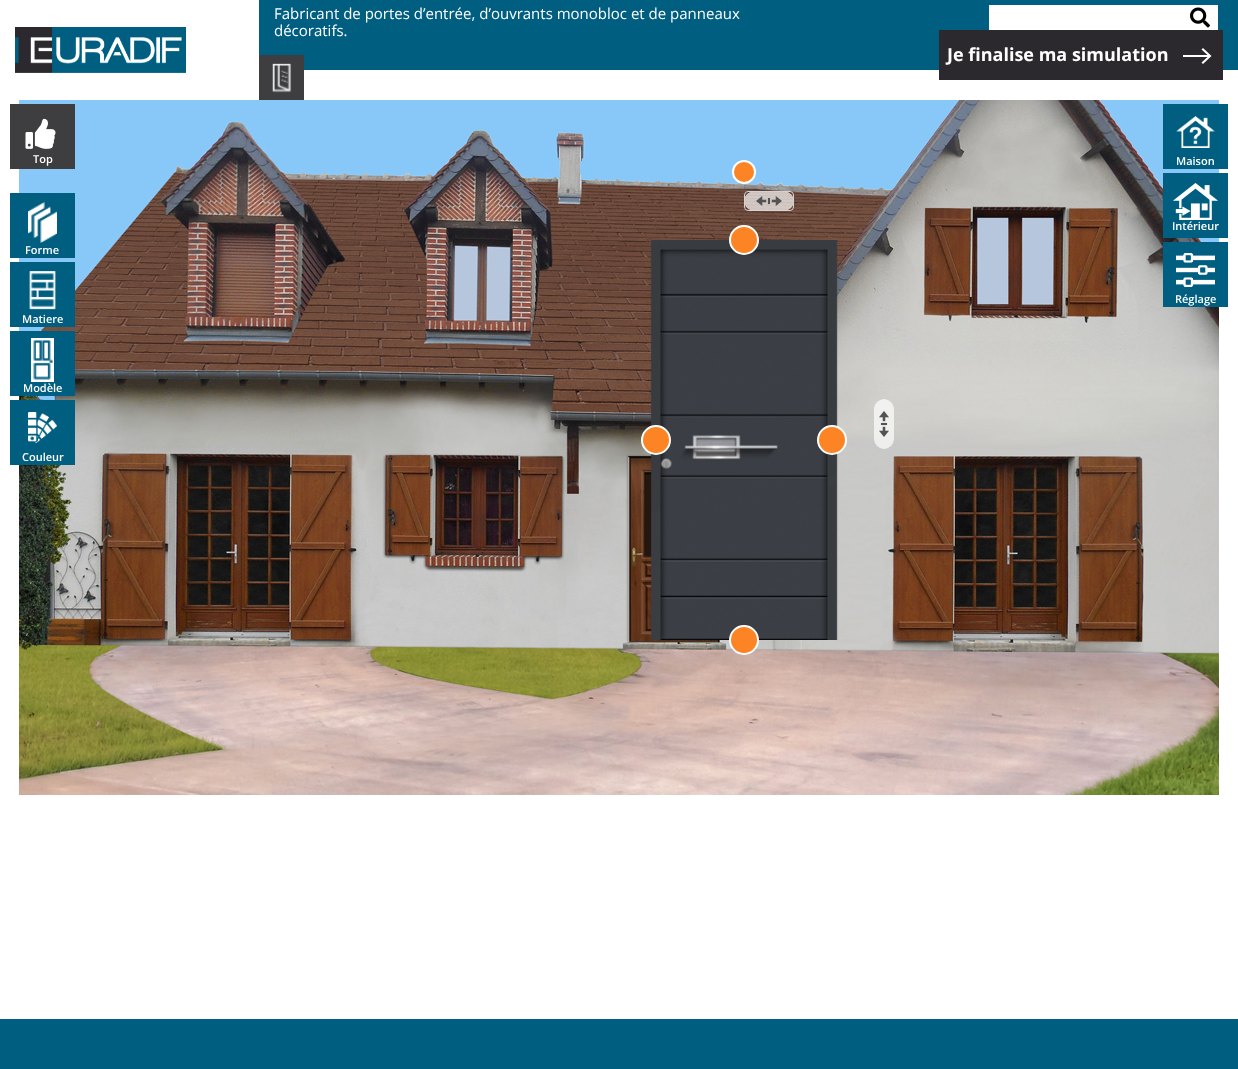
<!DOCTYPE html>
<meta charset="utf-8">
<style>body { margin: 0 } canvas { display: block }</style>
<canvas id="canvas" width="1238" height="1069"></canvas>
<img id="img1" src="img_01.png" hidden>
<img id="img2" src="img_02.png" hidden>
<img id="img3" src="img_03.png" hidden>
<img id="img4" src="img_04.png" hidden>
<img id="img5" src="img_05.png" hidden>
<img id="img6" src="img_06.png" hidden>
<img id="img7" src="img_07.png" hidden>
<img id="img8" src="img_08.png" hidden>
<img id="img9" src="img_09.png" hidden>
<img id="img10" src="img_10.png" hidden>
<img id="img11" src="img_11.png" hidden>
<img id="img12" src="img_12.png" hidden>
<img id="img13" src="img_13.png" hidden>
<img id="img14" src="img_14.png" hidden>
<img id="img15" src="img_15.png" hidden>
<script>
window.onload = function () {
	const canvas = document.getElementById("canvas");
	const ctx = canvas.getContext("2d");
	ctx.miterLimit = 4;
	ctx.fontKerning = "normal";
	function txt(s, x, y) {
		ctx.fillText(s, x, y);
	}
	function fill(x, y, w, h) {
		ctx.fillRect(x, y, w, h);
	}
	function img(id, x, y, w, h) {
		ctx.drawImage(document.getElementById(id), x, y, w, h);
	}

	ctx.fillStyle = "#FFFFFF";
	fill(0, 0, 1238, 1069);
	ctx.fillStyle = "#005E81";
	fill(259, 0, 979, 70);
	ctx.fillStyle = "#FFFFFF";
	fill(989, 5, 229, 25);
	img("img1", 1190, 7, 20, 21);
	ctx.fillStyle = "#3E3E40";
	fill(259, 55, 45, 45);
	img("img2", 272, 63, 20, 30);
	img("img3", 15, 27, 171, 46);
	ctx.fillStyle = "#2B292D";
	fill(939, 30, 284, 50);
	ctx.fillStyle = "#FFFFFF";
	ctx.beginPath();
	ctx.moveTo(1203, 48);
	ctx.lineTo(1201.5, 49.5);
	ctx.lineTo(1207.5, 55);
	ctx.lineTo(1183, 55);
	ctx.lineTo(1183, 57);
	ctx.lineTo(1207.5, 57);
	ctx.lineTo(1201.5, 62.5);
	ctx.lineTo(1203, 64);
	ctx.lineTo(1211.5, 56);
	ctx.closePath();
	ctx.fill();
	img("img4", 19, 100, 1200, 695);
	ctx.fillStyle = "#FC8424";
	ctx.beginPath();
	ctx.arc(744, 172, 11, 0, Math.PI * 2);
	ctx.fill();
	ctx.strokeStyle = "#FFFFFF";
	ctx.lineWidth = 2;
	ctx.stroke();
	img("img5", 745, 192, 48, 18);
	ctx.beginPath();
	ctx.roundRect(744.5, 191.5, 49, 19, 3.5);
	ctx.strokeStyle = "#D3D3D3";
	ctx.lineWidth = 1;
	ctx.stroke();
	img("img6", 650, 240, 188, 400);
	ctx.beginPath();
	ctx.arc(744, 240, 14, 0, Math.PI * 2);
	ctx.fill();
	ctx.strokeStyle = "#FFFFFF";
	ctx.lineWidth = 2;
	ctx.stroke();
	img("img7", 874, 399, 20, 50);
	ctx.beginPath();
	ctx.arc(656, 440, 14, 0, Math.PI * 2);
	ctx.fill();
	ctx.stroke();
	ctx.beginPath();
	ctx.arc(832, 440, 14, 0, Math.PI * 2);
	ctx.fill();
	ctx.stroke();
	ctx.beginPath();
	ctx.arc(744, 640, 14, 0, Math.PI * 2);
	ctx.fill();
	ctx.stroke();
	ctx.fillStyle = "#3E3E40";
	fill(10, 104, 65, 65);
	img("img8", 25, 118, 31, 31);
	ctx.fillStyle = "#005E81";
	fill(10, 193, 65, 65);
	img("img9", 28, 202, 29, 41);
	fill(10, 262, 65, 65);
	img("img10", 29, 271, 27, 39);
	fill(10, 331, 65, 65);
	img("img11", 31, 338, 23, 44);
	fill(10, 400, 65, 65);
	img("img12", 28, 412, 29, 31);
	fill(1163, 104, 65, 65);
	img("img13", 1176, 116, 39, 32);
	fill(1163, 173, 65, 65);
	img("img14", 1173, 183, 45, 37);
	fill(1163, 242, 65, 65);
	img("img15", 1176, 253, 39, 34);
	fill(0, 1019, 1238, 50);
	ctx.font = "15px Open Sans";
	ctx.fillStyle = "#FFFFFF";
	txt("Fabricant de portes d’entrée, d’ouvrants monobloc et de panneaux", 274, 19);
	txt("décoratifs.", 274, 36);
	ctx.font = "bold 18px Open Sans";
	txt("Je finalise ma simulation", 947, 61);
	ctx.font = "600 11px Open Sans";
	txt("Top", 33, 163);
	txt("Forme", 25, 254);
	txt("Matiere", 22, 323);
	txt("Modèle", 23, 392);
	txt("Couleur", 22, 461);
	txt("Maison", 1176, 165);
	txt("Intérieur", 1172, 230);
	txt("Réglage", 1175, 303);
};
</script>
